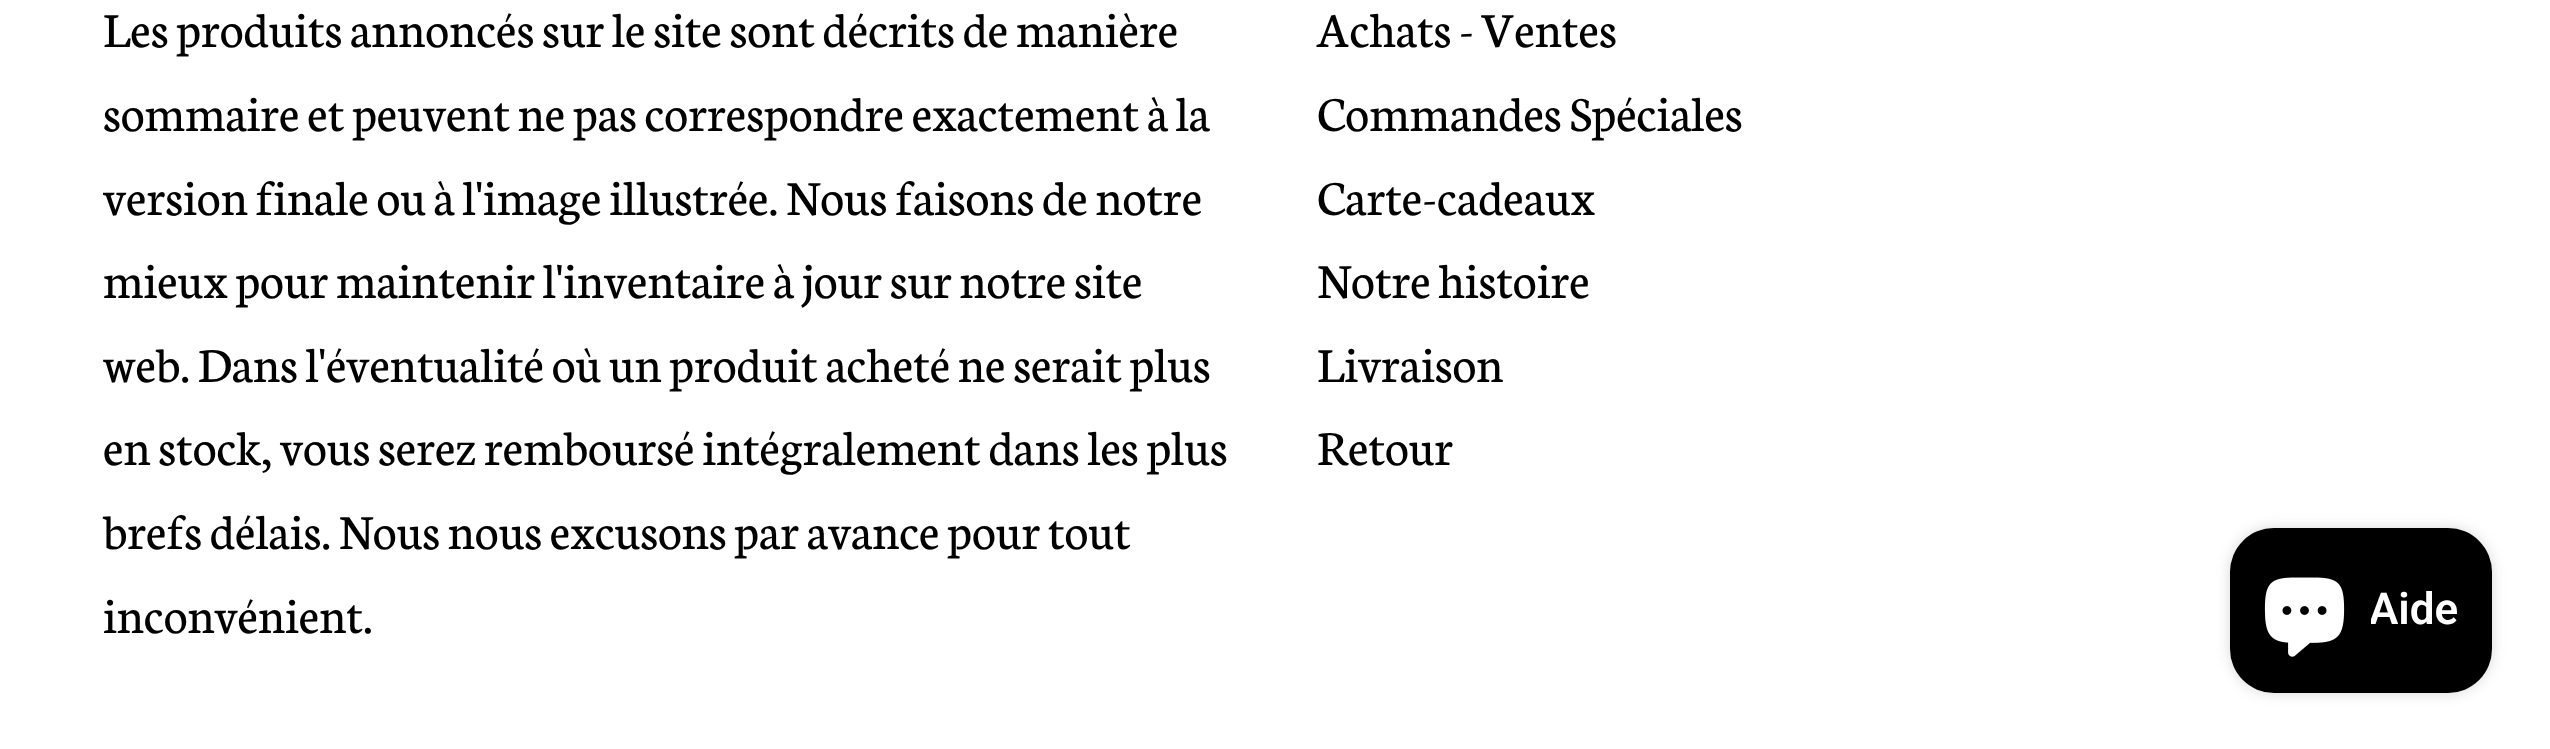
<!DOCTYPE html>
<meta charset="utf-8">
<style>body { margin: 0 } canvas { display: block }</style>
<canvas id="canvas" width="2550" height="749"></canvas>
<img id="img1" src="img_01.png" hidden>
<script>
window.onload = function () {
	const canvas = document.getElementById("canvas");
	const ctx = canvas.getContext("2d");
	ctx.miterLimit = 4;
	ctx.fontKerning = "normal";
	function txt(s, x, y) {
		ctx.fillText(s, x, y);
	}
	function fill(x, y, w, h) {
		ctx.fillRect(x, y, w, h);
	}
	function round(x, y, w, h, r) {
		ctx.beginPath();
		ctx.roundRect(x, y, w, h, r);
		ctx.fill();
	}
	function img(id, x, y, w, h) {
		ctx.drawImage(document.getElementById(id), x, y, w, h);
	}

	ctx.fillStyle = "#FFFFFF";
	fill(0, 0, 2550, 749);
	ctx.fillStyle = "rgba(0, 0, 0, 0.15)";
	ctx.filter = "blur(7px)";
	ctx.beginPath();
	ctx.roundRect(2230, 528, 262, 165, 44);
	ctx.fill();
	ctx.filter = "none";
	ctx.fillStyle = "#000000";
	round(2230, 528, 262, 165, 44);
	img("img1", 2264, 577, 81, 80);
	ctx.font = "52.25px Neuton";
	txt("Les produits annoncés sur le site sont décrits de manière", 103, 47);
	txt("sommaire et peuvent ne pas correspondre exactement à la", 103, 131);
	txt("version finale ou à l'image illustrée. Nous faisons de notre", 103, 215);
	txt("mieux pour maintenir l'inventaire à jour sur notre site", 103, 298);
	txt("web. Dans l'éventualité où un produit acheté ne serait plus", 103, 382);
	txt("en stock, vous serez remboursé intégralement dans les plus", 103, 465);
	txt("brefs délais. Nous nous excusons par avance pour tout", 103, 549);
	txt("inconvénient.", 103, 633);
	txt("Achats - Ventes", 1317, 47);
	txt("Commandes Spéciales", 1317, 131);
	txt("Carte-cadeaux", 1317, 215);
	txt("Notre histoire", 1317, 298);
	txt("Livraison", 1317, 382);
	txt("Retour", 1317, 465);
	ctx.save();
	ctx.beginPath();
	ctx.rect(2371, 569, 88, 83);
	ctx.clip();
	ctx.font = "600 44px Roboto";
	ctx.fillStyle = "#FFFFFF";
	txt("Aide", 2369, 624);
	ctx.restore();
};
</script>
